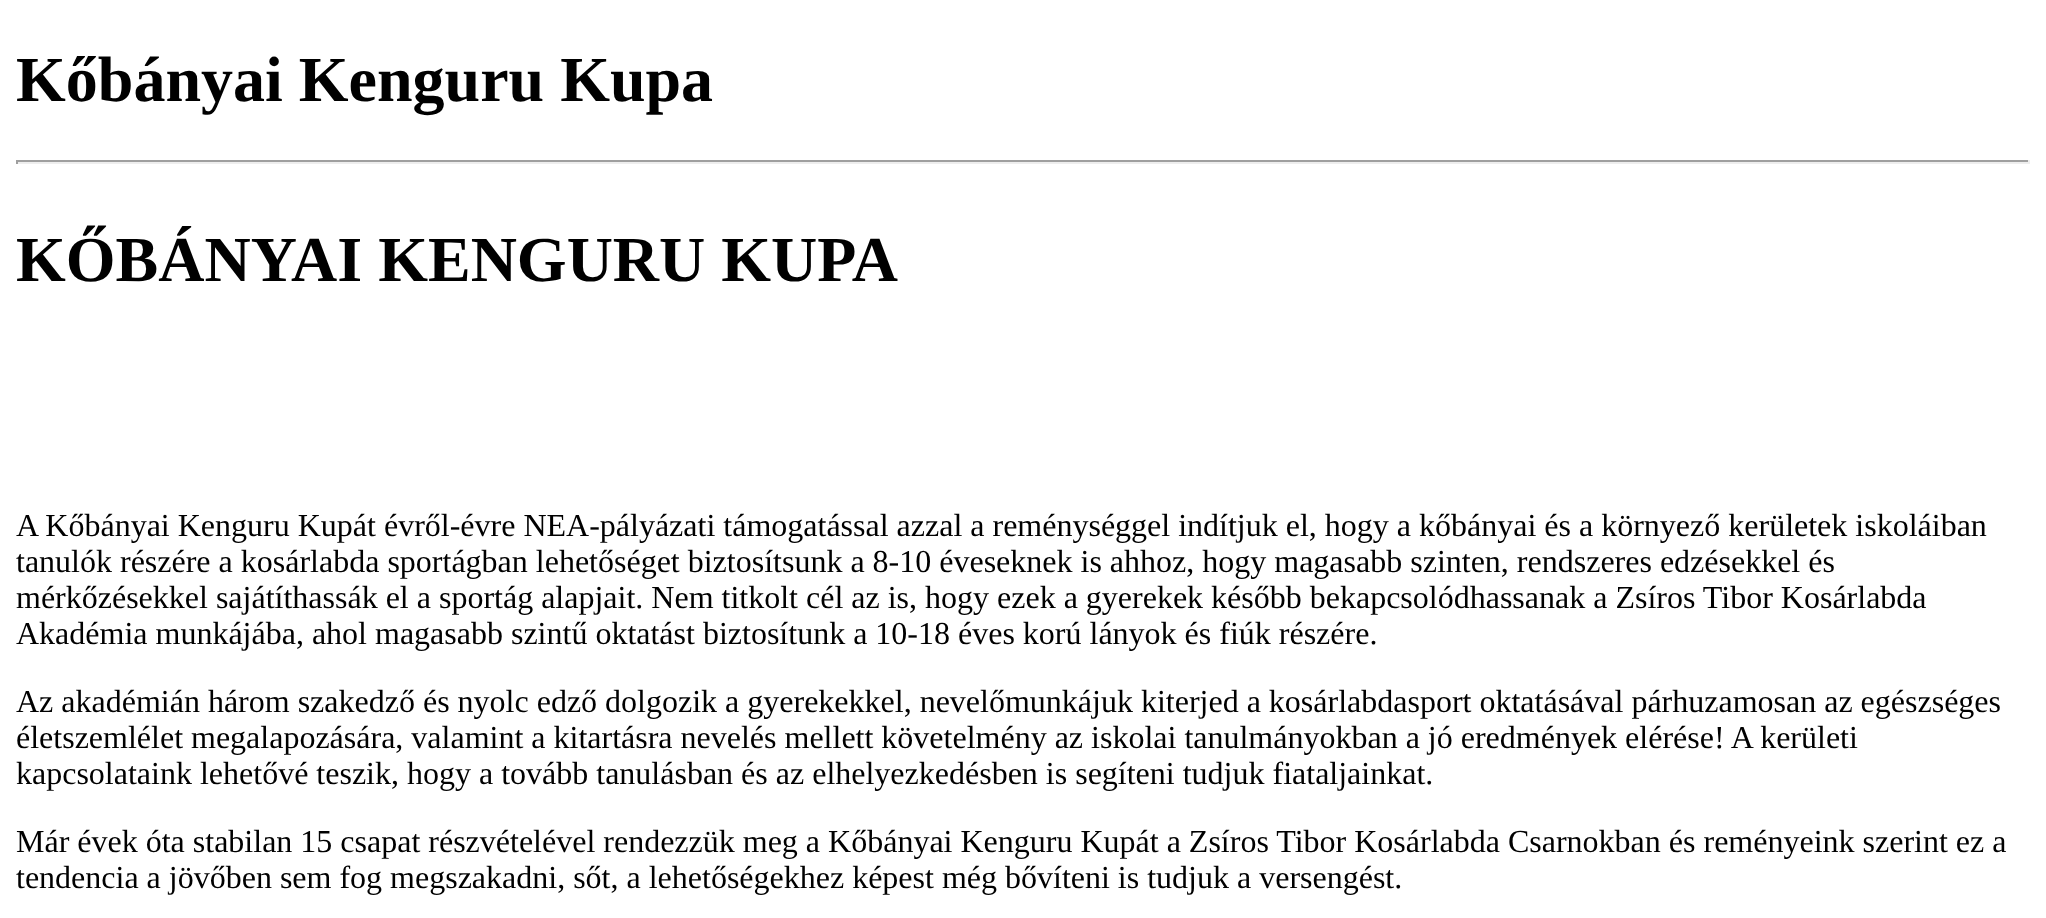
<!DOCTYPE html>
<meta charset="utf-8">
<style>body { margin: 0 } canvas { display: block }</style>
<canvas id="canvas" width="2046" height="918"></canvas>
<script>
window.onload = function () {
	const canvas = document.getElementById("canvas");
	const ctx = canvas.getContext("2d");
	ctx.miterLimit = 4;
	ctx.fontKerning = "normal";
	function txt(s, x, y) {
		ctx.fillText(s, x, y);
	}
	function fill(x, y, w, h) {
		ctx.fillRect(x, y, w, h);
	}

	ctx.fillStyle = "#FFFFFF";
	fill(0, 0, 2046, 918);
	ctx.fillStyle = "#9F9F9F";
	fill(16, 160, 2014, 2);
	ctx.fillStyle = "#EEEEEE";
	fill(2028, 160, 2, 4);
	fill(16, 162, 2014, 2);
	ctx.fillStyle = "#9F9F9F";
	fill(16, 160, 2, 4);
	ctx.font = "bold 64px Liberation Serif";
	ctx.fillStyle = "#000000";
	txt("Kőbányai Kenguru Kupa", 16, 101);
	txt("KŐBÁNYAI KENGURU KUPA", 16, 281);
	ctx.font = "32px Liberation Serif";
	txt("A Kőbányai Kenguru Kupát évről-évre NEA-pályázati támogatással azzal a reménységgel indítjuk el, hogy a kőbányai és a környező kerületek iskoláiban", 16, 536);
	txt("tanulók részére a kosárlabda sportágban lehetőséget biztosítsunk a 8-10 éveseknek is ahhoz, hogy magasabb szinten, rendszeres edzésekkel és", 16, 572);
	txt("mérkőzésekkel sajátíthassák el a sportág alapjait. Nem titkolt cél az is, hogy ezek a gyerekek később bekapcsolódhassanak a Zsíros Tibor Kosárlabda", 16, 608);
	txt("Akadémia munkájába, ahol magasabb szintű oktatást biztosítunk a 10-18 éves korú lányok és fiúk részére.", 16, 644);
	txt("Az akadémián három szakedző és nyolc edző dolgozik a gyerekekkel, nevelőmunkájuk kiterjed a kosárlabdasport oktatásával párhuzamosan az egészséges", 16, 712);
	txt("életszemlélet megalapozására, valamint a kitartásra nevelés mellett követelmény az iskolai tanulmányokban a jó eredmények elérése! A kerületi", 16, 748);
	txt("kapcsolataink lehetővé teszik, hogy a tovább tanulásban és az elhelyezkedésben is segíteni tudjuk fiataljainkat.", 16, 784);
	txt("Már évek óta stabilan 15 csapat részvételével rendezzük meg a Kőbányai Kenguru Kupát a Zsíros Tibor Kosárlabda Csarnokban és reményeink szerint ez a", 16, 852);
	txt("tendencia a jövőben sem fog megszakadni, sőt, a lehetőségekhez képest még bővíteni is tudjuk a versengést.", 16, 888);
};
</script>
